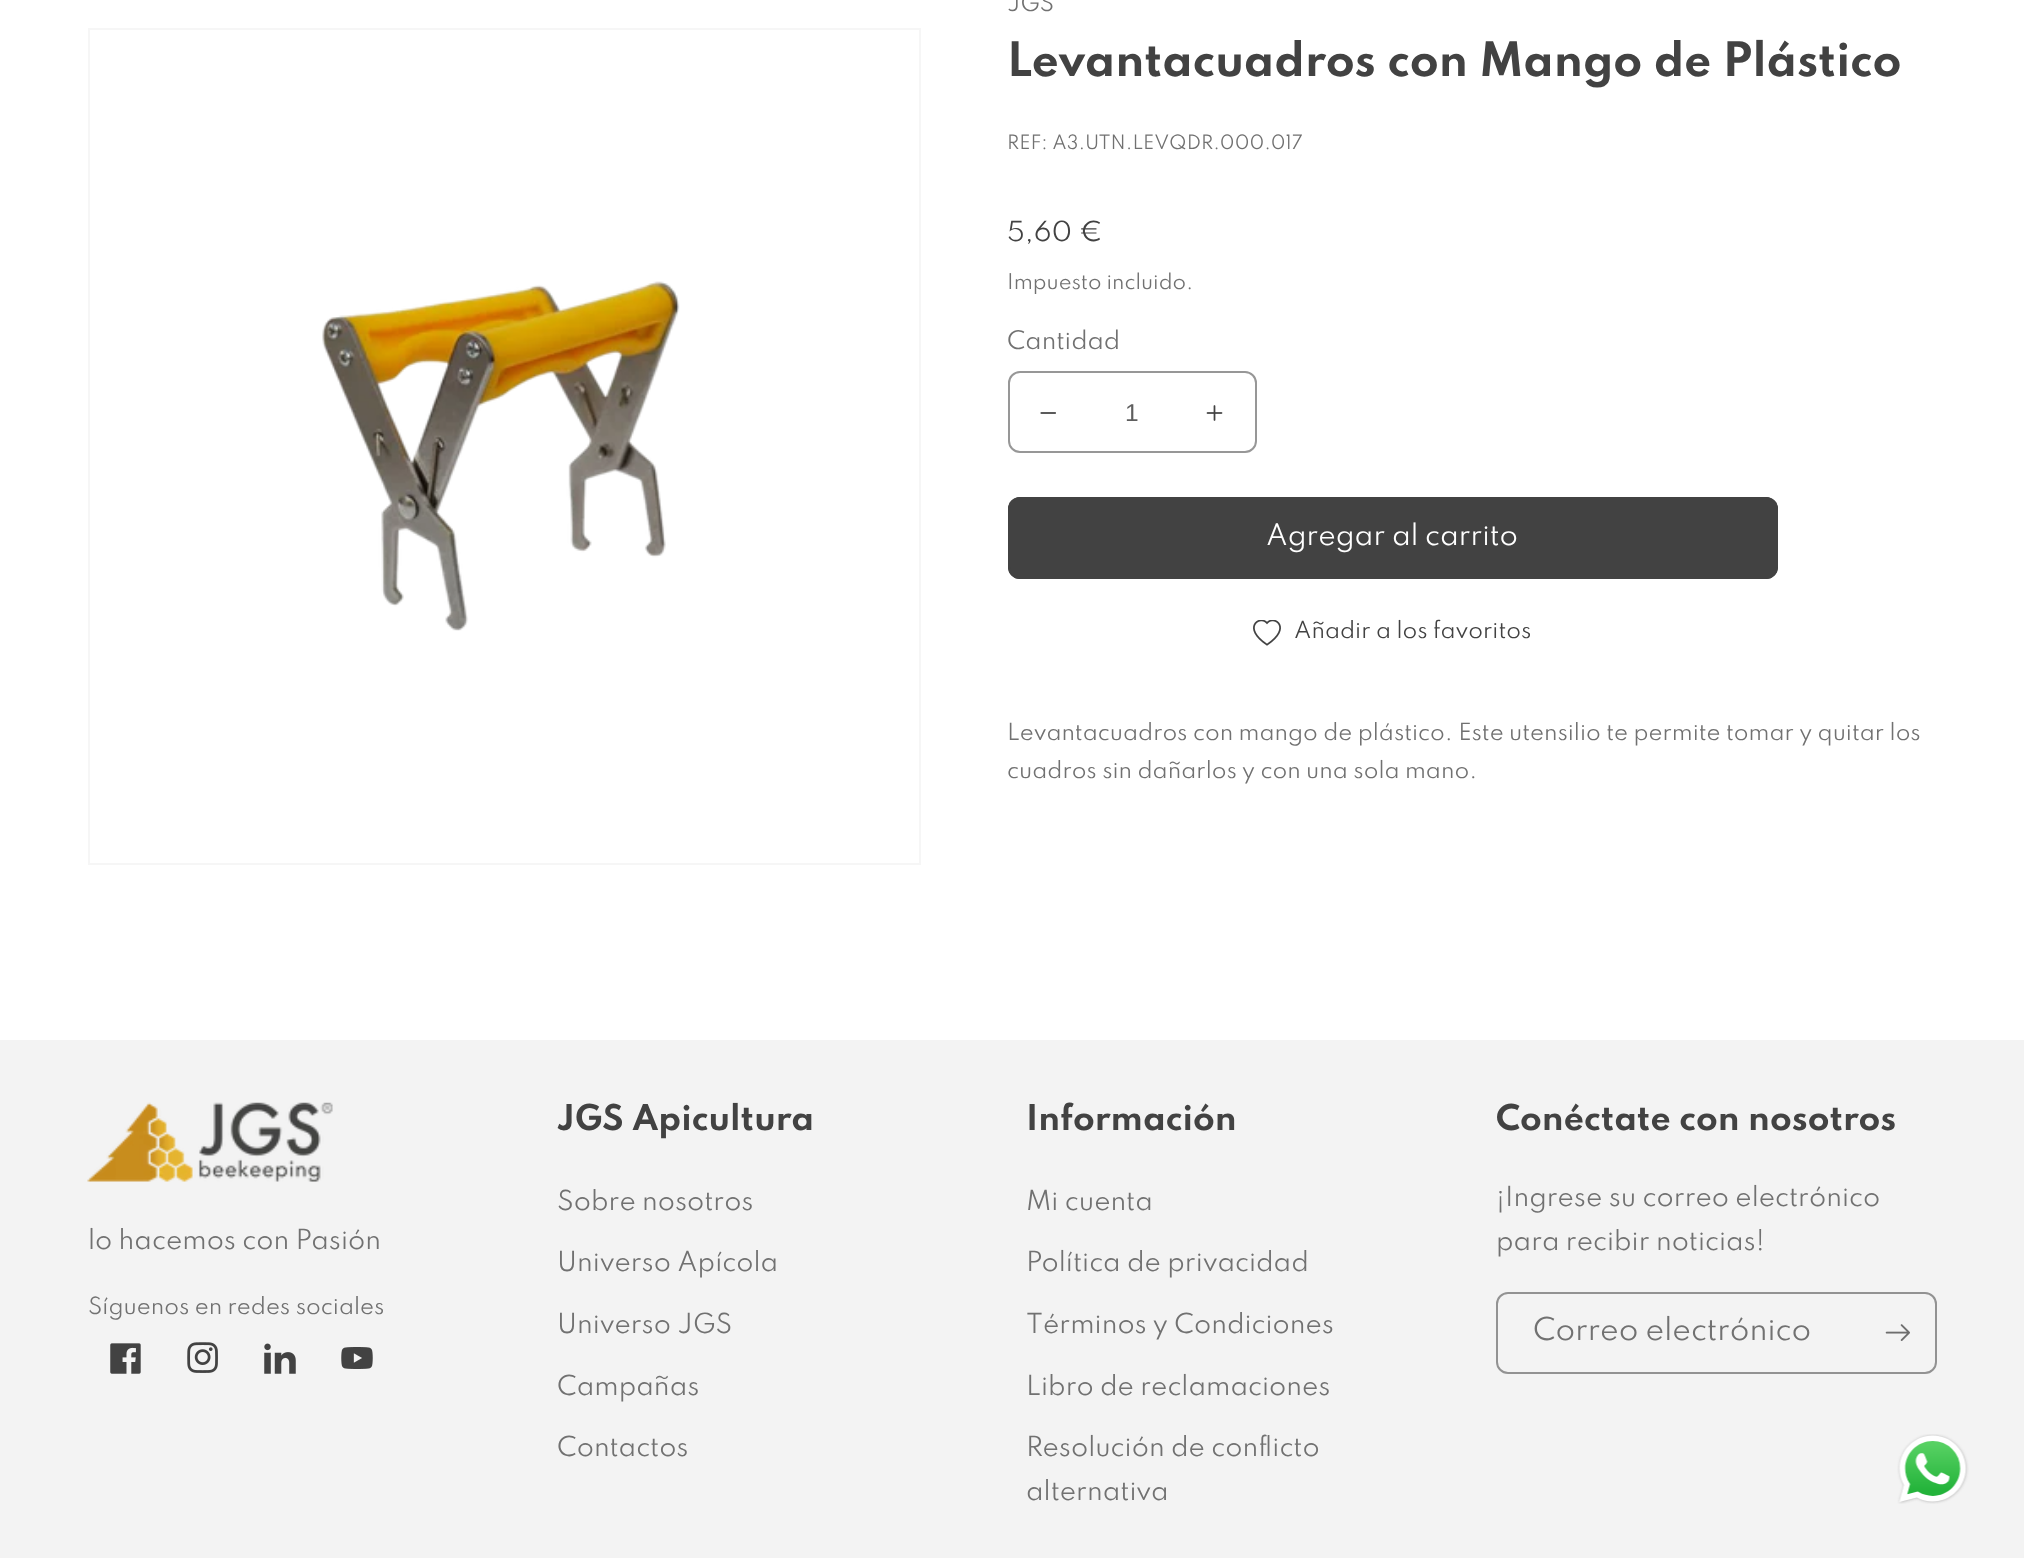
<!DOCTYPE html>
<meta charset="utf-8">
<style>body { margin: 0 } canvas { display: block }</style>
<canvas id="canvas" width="2024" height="1558"></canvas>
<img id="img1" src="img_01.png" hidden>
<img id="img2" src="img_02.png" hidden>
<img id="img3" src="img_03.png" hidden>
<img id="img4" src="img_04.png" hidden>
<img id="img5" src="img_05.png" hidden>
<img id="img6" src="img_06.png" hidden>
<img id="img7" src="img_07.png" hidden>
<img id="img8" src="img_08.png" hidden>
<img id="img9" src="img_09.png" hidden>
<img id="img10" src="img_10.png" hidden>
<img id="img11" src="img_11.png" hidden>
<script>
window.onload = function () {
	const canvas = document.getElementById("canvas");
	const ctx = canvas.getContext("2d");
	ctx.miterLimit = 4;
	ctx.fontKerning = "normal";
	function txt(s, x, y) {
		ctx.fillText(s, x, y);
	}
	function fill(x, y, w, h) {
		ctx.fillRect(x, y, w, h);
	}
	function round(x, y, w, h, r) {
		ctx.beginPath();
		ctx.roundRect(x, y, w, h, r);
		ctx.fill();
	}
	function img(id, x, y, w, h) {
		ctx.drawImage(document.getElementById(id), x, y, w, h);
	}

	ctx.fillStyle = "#FFFFFF";
	fill(0, 0, 2024, 1558);
	ctx.strokeStyle = "#F6F6F6";
	ctx.lineWidth = 2;
	ctx.strokeRect(89, 29, 831, 835);
	img("img1", 322, 281, 358, 350);
	img("img2", 1040, 412, 16, 2);
	img("img3", 1206, 405, 17, 16);
	ctx.beginPath();
	ctx.roundRect(1009, 372, 247, 80, 11);
	ctx.strokeStyle = "#979797";
	ctx.stroke();
	ctx.fillStyle = "#424242";
	round(1008, 497, 770, 82, 12);
	ctx.beginPath();
	ctx.roundRect(1009, 498, 768, 80, 11);
	ctx.strokeStyle = "#424242";
	ctx.stroke();
	img("img4", 1253, 620, 28, 26);
	ctx.fillStyle = "#F3F3F3";
	fill(0, 1040, 2024, 518);
	img("img5", 87, 1102, 246, 80);
	img("img6", 110, 1343, 31, 31);
	img("img7", 187, 1342, 31, 31);
	img("img8", 264, 1343, 32, 31);
	img("img9", 341, 1347, 32, 22);
	ctx.beginPath();
	ctx.roundRect(1497, 1293, 439, 80, 11);
	ctx.strokeStyle = "#929292";
	ctx.stroke();
	img("img10", 1885, 1324, 25, 17);
	img("img11", 1897, 1434, 72, 70);
	ctx.font = "21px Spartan";
	ctx.fillStyle = "#717171";
	txt("JGS", 1007, 11);
	ctx.font = "bold 42px Spartan";
	ctx.fillStyle = "#424242";
	txt("Levantacuadros con Mango de Plástico", 1007, 76);
	ctx.font = "17.5px Spartan";
	ctx.fillStyle = "#717171";
	txt("REF: A3.UTN.LEVQDR.000.017", 1007, 149);
	ctx.font = "24.5px Spartan";
	ctx.fillStyle = "#424242";
	txt("5,60 €", 1007, 241);
	ctx.font = "19.25px Spartan";
	ctx.fillStyle = "#717171";
	txt("Impuesto incluido.", 1007, 289);
	ctx.font = "22.75px Spartan";
	txt("Cantidad", 1007, 349);
	ctx.font = "24.5px Liberation Sans";
	ctx.fillStyle = "#5E5E5E";
	txt("1", 1125, 421);
	ctx.font = "26.25px Spartan";
	ctx.fillStyle = "#FFFFFF";
	txt("Agregar al carrito", 1266, 545);
	ctx.font = "21px Spartan";
	ctx.fillStyle = "#424242";
	txt("Añadir a los favoritos", 1294, 638);
	ctx.fillStyle = "#717171";
	txt("Levantacuadros con mango de plástico. Este utensilio te permite tomar y quitar los", 1007, 740);
	txt("cuadros sin dañarlos y con una sola mano.", 1007, 778);
	ctx.font = "24.5px Spartan";
	txt("lo hacemos con Pasión", 88, 1249);
	ctx.font = "21px Spartan";
	txt("Síguenos en redes sociales", 88, 1314);
	ctx.font = "bold 31.5px Spartan";
	ctx.fillStyle = "#424242";
	txt("JGS Apicultura", 557, 1130);
	ctx.font = "24.5px Spartan";
	ctx.fillStyle = "#717171";
	txt("Sobre nosotros", 557, 1210);
	txt("Universo Apícola", 557, 1271);
	txt("Universo JGS", 557, 1333);
	txt("Campañas", 557, 1395);
	txt("Contactos", 557, 1456);
	ctx.font = "bold 31.5px Spartan";
	ctx.fillStyle = "#424242";
	txt("Información", 1026, 1130);
	ctx.font = "24.5px Spartan";
	ctx.fillStyle = "#717171";
	txt("Mi cuenta", 1026, 1210);
	txt("Política de privacidad", 1026, 1271);
	txt("Términos y Condiciones", 1026, 1333);
	txt("Libro de reclamaciones", 1026, 1395);
	txt("Resolución de conflicto", 1026, 1456);
	txt("alternativa", 1026, 1500);
	ctx.font = "bold 31.5px Spartan";
	ctx.fillStyle = "#424242";
	txt("Conéctate con nosotros", 1496, 1130);
	ctx.font = "24.5px Spartan";
	ctx.fillStyle = "#717171";
	txt("¡Ingrese su correo electrónico", 1496, 1206);
	txt("para recibir noticias!", 1496, 1250);
	ctx.font = "28px Spartan";
	txt("Correo electrónico", 1533, 1340);
};
</script>
